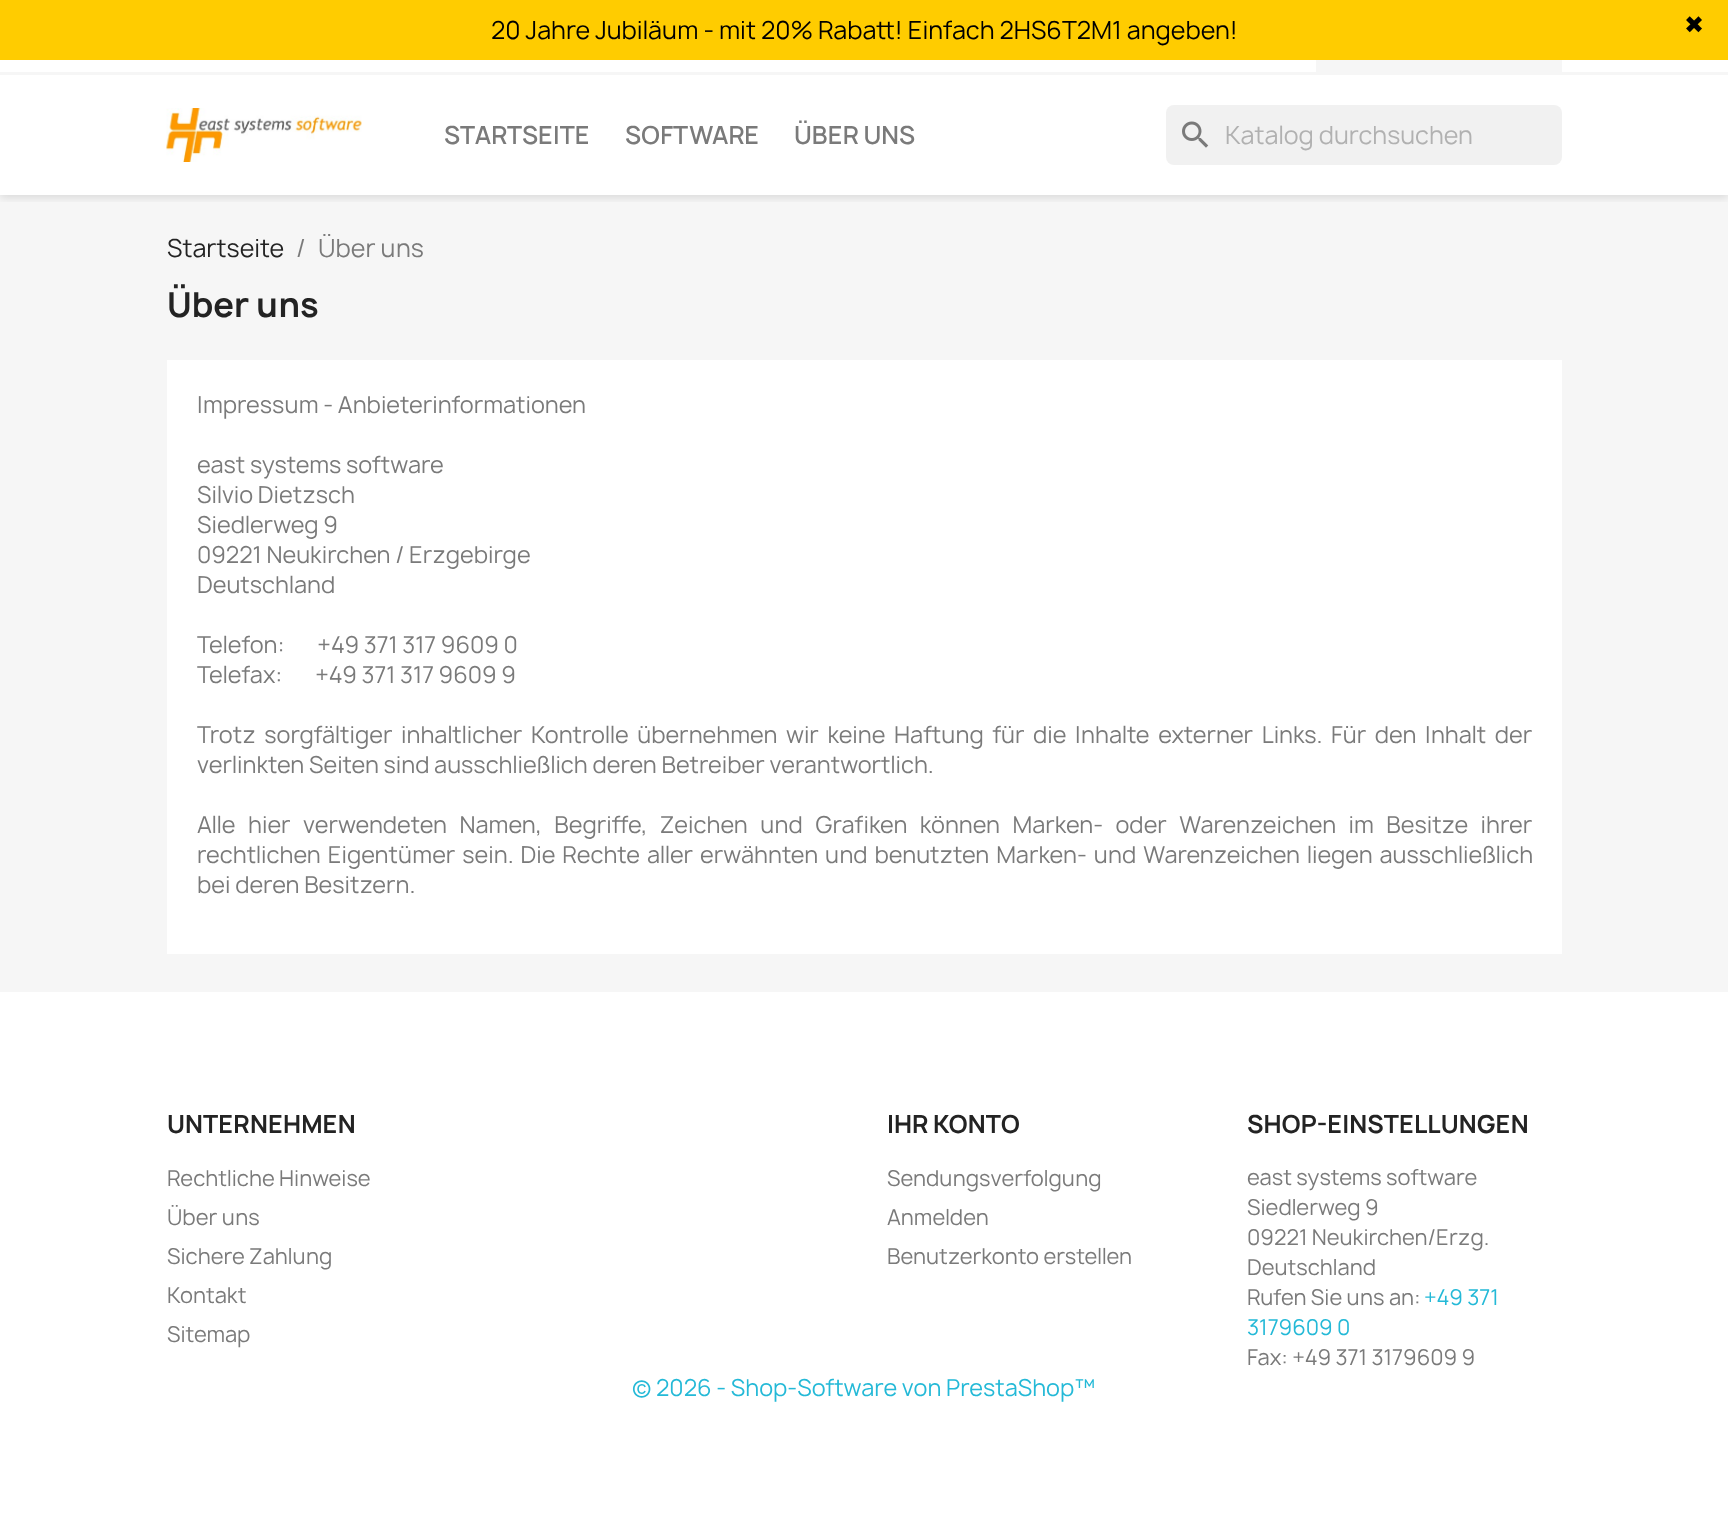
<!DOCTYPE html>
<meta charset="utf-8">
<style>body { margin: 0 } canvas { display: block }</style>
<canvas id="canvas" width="1728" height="1539"></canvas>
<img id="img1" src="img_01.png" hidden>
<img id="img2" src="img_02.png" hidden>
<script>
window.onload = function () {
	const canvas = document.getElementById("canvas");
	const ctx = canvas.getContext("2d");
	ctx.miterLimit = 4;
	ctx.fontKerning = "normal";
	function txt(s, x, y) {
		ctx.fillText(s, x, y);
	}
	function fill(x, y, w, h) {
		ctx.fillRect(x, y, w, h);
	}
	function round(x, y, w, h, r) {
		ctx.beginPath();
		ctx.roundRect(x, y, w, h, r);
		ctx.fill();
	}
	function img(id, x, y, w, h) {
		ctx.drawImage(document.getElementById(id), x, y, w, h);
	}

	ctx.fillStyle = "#FFFFFF";
	fill(0, 0, 1728, 1539);
	ctx.fillStyle = "#F6F6F6";
	fill(0, 195, 1728, 797);
	ctx.save();
	ctx.beginPath();
	ctx.rect(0, 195, 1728, 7);
	ctx.clip();
	ctx.fillStyle = "rgba(0, 0, 0, 0.11)";
	ctx.filter = "blur(4px)";
	ctx.beginPath();
	ctx.rect(0, 3, 1728, 195);
	ctx.fill();
	ctx.filter = "none";
	ctx.restore();
	ctx.fillStyle = "#FFCC00";
	fill(0, 0, 1728, 60);
	ctx.fillStyle = "#F6F6F6";
	fill(0, 72, 1728, 3);
	fill(1316, 60, 246, 12);
	img("img1", 166, 108, 196, 54);
	ctx.fillStyle = "#F1F1F1";
	round(1166, 105, 396, 60, 8);
	img("img2", 1182, 121, 27, 27);
	ctx.fillStyle = "#FFFFFF";
	fill(167, 360, 1395, 594);
	ctx.font = "24px Manrope";
	ctx.fillStyle = "#000000";
	txt("20 Jahre Jubiläum - mit 20% Rabatt! Einfach 2HS6T2M1 angeben!", 491, 39);
	ctx.font = "24px DejaVu Sans";
	txt("✖", 1684, 33);
	ctx.font = "600 24px Manrope";
	ctx.fillStyle = "#7A7A7A";
	txt("STARTSEITE", 444, 144);
	txt("SOFTWARE", 625, 144);
	txt("ÜBER UNS", 794, 144);
	ctx.font = "24px Manrope";
	ctx.fillStyle = "#B1B1B1";
	txt("Katalog durchsuchen", 1225, 144);
	ctx.fillStyle = "#232323";
	txt("Startseite", 167, 257);
	ctx.fillStyle = "#7A7A7A";
	txt("/", 296, 257);
	txt("Über uns", 318, 257);
	ctx.font = "bold 33px Manrope";
	ctx.fillStyle = "#232323";
	txt("Über uns", 167, 317);
	ctx.font = "22.5px Manrope";
	ctx.fillStyle = "#7A7A7A";
	txt("Impressum - Anbieterinformationen", 197, 413);
	txt("east systems software", 197, 473);
	txt("Silvio Dietzsch", 197, 503);
	txt("Siedlerweg 9", 197, 533);
	txt("09221 Neukirchen / Erzgebirge", 197, 563);
	txt("Deutschland", 197, 593);
	txt("Telefon:       +49 371 317 9609 0", 197, 653);
	txt("Telefax:       +49 371 317 9609 9", 197, 683);
	ctx.wordSpacing = "3.9px";
	txt("Trotz sorgfältiger inhaltlicher Kontrolle übernehmen wir keine Haftung für die Inhalte externer Links. Für den Inhalt der", 197, 743);
	ctx.wordSpacing = "0px";
	txt("verlinkten Seiten sind ausschließlich deren Betreiber verantwortlich.", 197, 773);
	ctx.wordSpacing = "7.75px";
	txt("Alle hier verwendeten Namen, Begriffe, Zeichen und Grafiken können Marken- oder Warenzeichen im Besitze ihrer", 197, 833);
	ctx.wordSpacing = "2.25px";
	txt("rechtlichen Eigentümer sein. Die Rechte aller erwähnten und benutzten Marken- und Warenzeichen liegen ausschließlich", 197, 863);
	ctx.wordSpacing = "0px";
	txt("bei deren Besitzern.", 197, 893);
	ctx.font = "bold 24px Manrope";
	ctx.fillStyle = "#232323";
	txt("UNTERNEHMEN", 167, 1133);
	ctx.font = "21px Manrope";
	ctx.fillStyle = "#7A7A7A";
	txt("Rechtliche Hinweise", 167, 1186);
	txt("Über uns", 167, 1225);
	txt("Sichere Zahlung", 167, 1264);
	txt("Kontakt", 167, 1303);
	txt("Sitemap", 167, 1342);
	ctx.font = "bold 24px Manrope";
	ctx.fillStyle = "#232323";
	txt("IHR KONTO", 887, 1133);
	ctx.font = "21px Manrope";
	ctx.fillStyle = "#7A7A7A";
	txt("Sendungsverfolgung", 887, 1186);
	txt("Anmelden", 887, 1225);
	txt("Benutzerkonto erstellen", 887, 1264);
	ctx.font = "bold 24px Manrope";
	ctx.fillStyle = "#232323";
	txt("SHOP-EINSTELLUNGEN", 1247, 1133);
	ctx.font = "21px Manrope";
	ctx.fillStyle = "#7A7A7A";
	txt("east systems software", 1247, 1185);
	txt("Siedlerweg 9", 1247, 1215);
	txt("09221 Neukirchen/Erzg.", 1247, 1245);
	txt("Deutschland", 1247, 1275);
	txt("Rufen Sie uns an:", 1247, 1305);
	ctx.fillStyle = "#24B9D7";
	txt("+49 371", 1424, 1305);
	txt("3179609 0", 1247, 1335);
	ctx.fillStyle = "#7A7A7A";
	txt("Fax: +49 371 3179609 9", 1247, 1365);
	ctx.font = "22.5px Manrope";
	ctx.fillStyle = "#24B9D7";
	txt("© 2026 - Shop-Software von PrestaShop™", 632, 1396);
};
</script>
